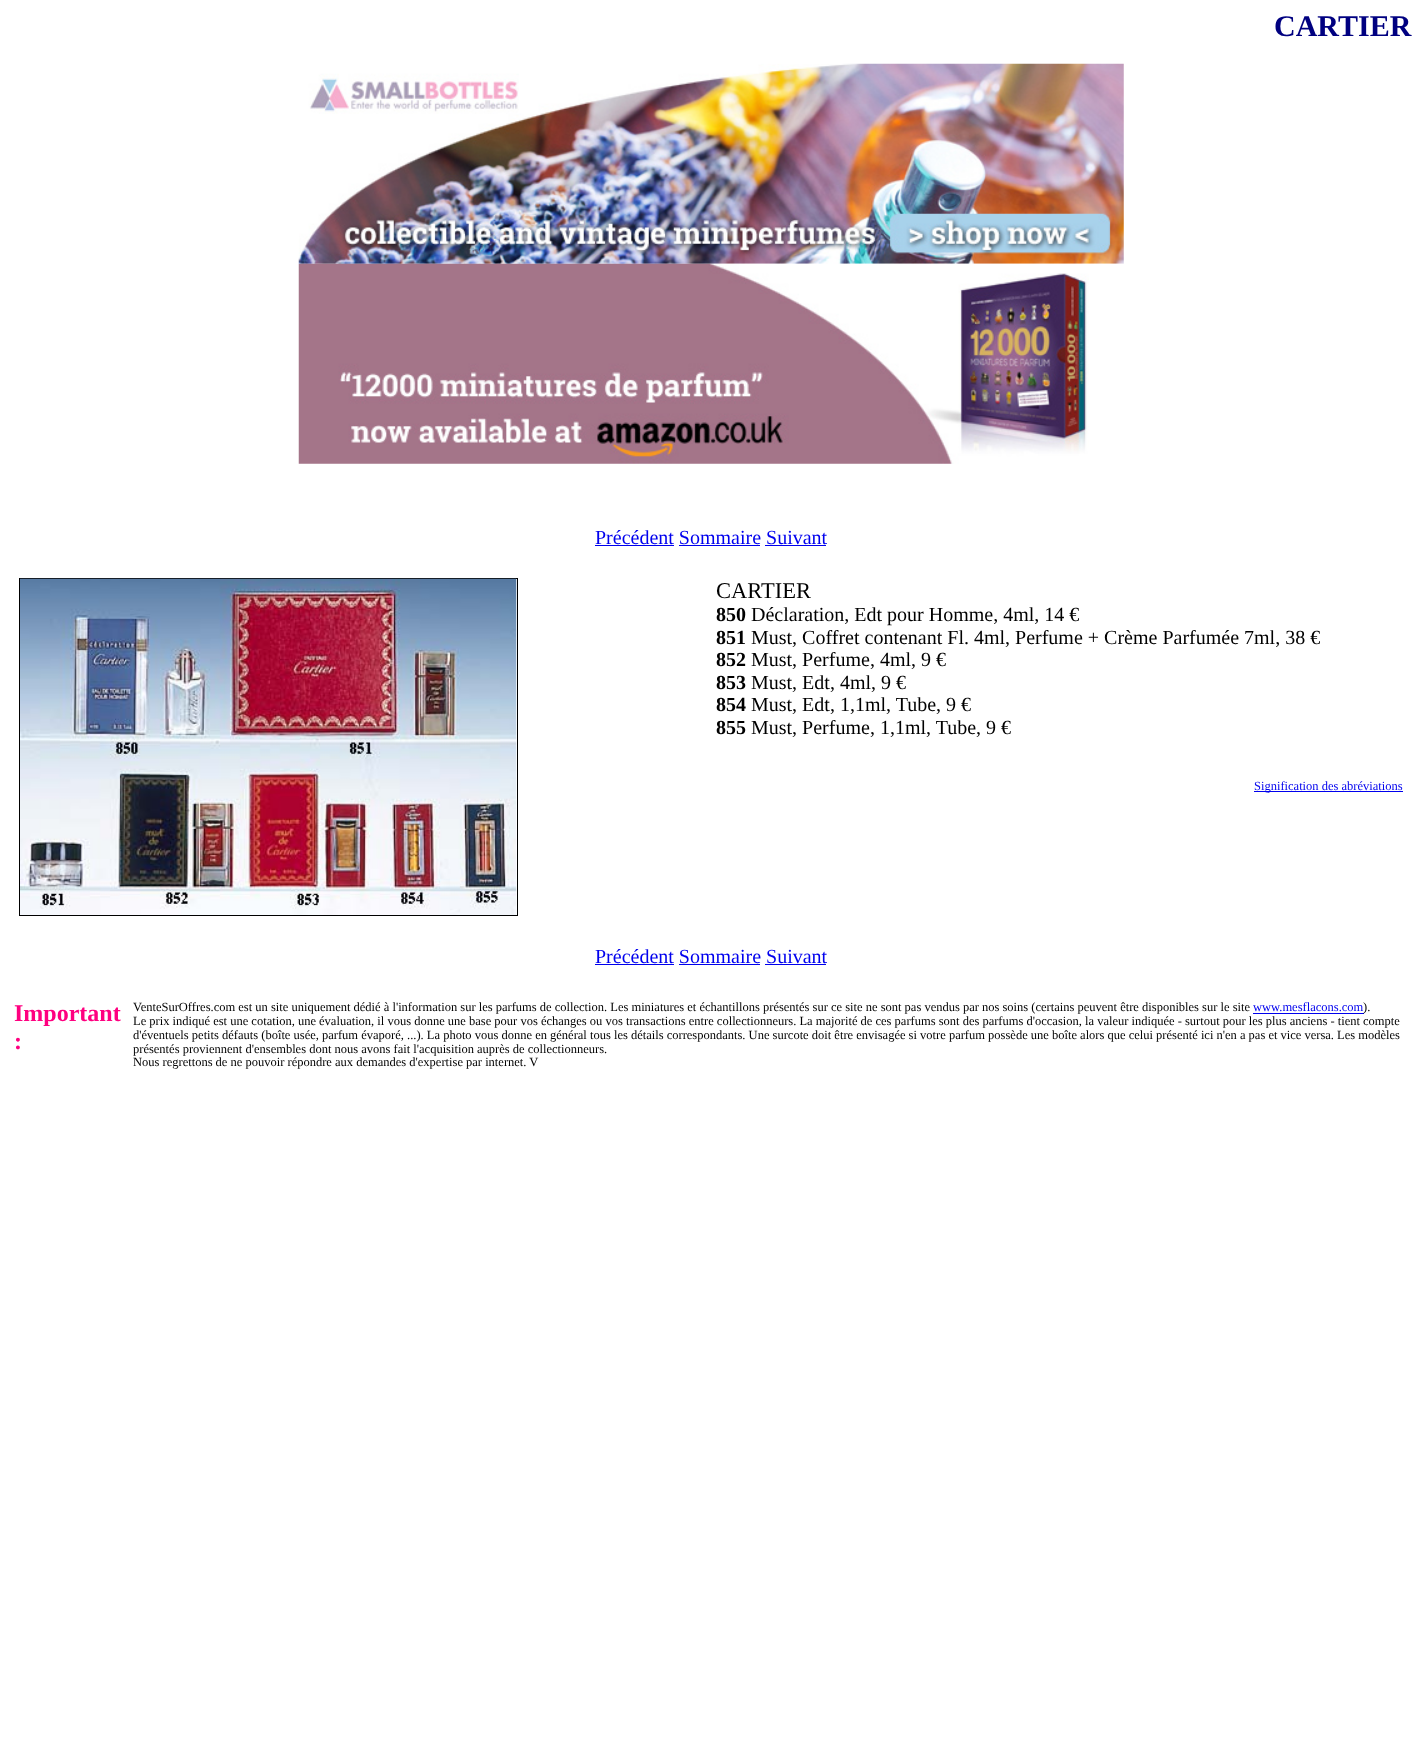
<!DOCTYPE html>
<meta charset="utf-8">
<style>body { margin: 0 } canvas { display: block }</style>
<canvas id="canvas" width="1421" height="1759"></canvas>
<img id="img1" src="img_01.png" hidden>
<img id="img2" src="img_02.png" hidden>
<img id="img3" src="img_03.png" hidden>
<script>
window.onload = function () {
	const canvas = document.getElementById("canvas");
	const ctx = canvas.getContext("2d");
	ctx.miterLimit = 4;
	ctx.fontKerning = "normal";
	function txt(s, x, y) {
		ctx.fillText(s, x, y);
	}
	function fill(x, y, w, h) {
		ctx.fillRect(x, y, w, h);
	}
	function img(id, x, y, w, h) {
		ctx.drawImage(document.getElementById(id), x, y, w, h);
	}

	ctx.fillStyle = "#FFFFFF";
	fill(0, 0, 1421, 1759);
	img("img1", 298, 63, 826, 201);
	img("img2", 298, 263, 826, 201);
	ctx.fillStyle = "#0000EE";
	fill(595, 545, 79, 1);
	fill(679, 545, 81, 1);
	fill(765, 545, 61, 1);
	ctx.strokeStyle = "#000000";
	ctx.strokeRect(19.5, 578.5, 498, 337);
	img("img3", 20, 578, 497, 337);
	fill(1254, 791, 149, 1);
	fill(595, 964, 79, 1);
	fill(679, 964, 81, 1);
	fill(765, 964, 61, 1);
	fill(1253, 1013, 111, 1);
	ctx.font = "bold 30px Liberation Serif";
	ctx.fillStyle = "#000080";
	txt("CARTIER", 1274, 36);
	ctx.font = "20px Liberation Serif";
	ctx.fillStyle = "#0000EE";
	txt("Précédent Sommaire Suivant", 595, 544);
	ctx.font = "22.5px Liberation Serif";
	ctx.fillStyle = "#000000";
	txt("CARTIER", 716, 598);
	ctx.font = "bold 20px Liberation Serif";
	txt("850", 716, 621);
	ctx.font = "20px Liberation Serif";
	txt("Déclaration, Edt pour Homme, 4ml, 14 €", 751, 621);
	ctx.font = "bold 20px Liberation Serif";
	txt("851", 716, 644);
	ctx.font = "20px Liberation Serif";
	txt("Must, Coffret contenant Fl. 4ml, Perfume + Crème Parfumée 7ml, 38 €", 751, 644);
	ctx.font = "bold 20px Liberation Serif";
	txt("852", 716, 666);
	ctx.font = "20px Liberation Serif";
	txt("Must, Perfume, 4ml, 9 €", 751, 666);
	ctx.font = "bold 20px Liberation Serif";
	txt("853", 716, 689);
	ctx.font = "20px Liberation Serif";
	txt("Must, Edt, 4ml, 9 €", 751, 689);
	ctx.font = "bold 20px Liberation Serif";
	txt("854", 716, 711);
	ctx.font = "20px Liberation Serif";
	txt("Must, Edt, 1,1ml, Tube, 9 €", 751, 711);
	ctx.font = "bold 20px Liberation Serif";
	txt("855", 716, 734);
	ctx.font = "20px Liberation Serif";
	txt("Must, Perfume, 1,1ml, Tube, 9 €", 751, 734);
	ctx.font = "12.5px Liberation Serif";
	ctx.fillStyle = "#0000EE";
	txt("Signification des abréviations", 1254, 790);
	ctx.font = "20px Liberation Serif";
	txt("Précédent Sommaire Suivant", 595, 963);
	ctx.font = "bold 24px Liberation Serif";
	ctx.fillStyle = "#FF0080";
	txt("Important", 14, 1021);
	txt(":", 14, 1049);
	ctx.font = "12.5px Liberation Serif";
	ctx.fillStyle = "#000000";
	txt("VenteSurOffres.com est un site uniquement dédié à l'information sur les parfums de collection. Les miniatures et échantillons présentés sur ce site ne sont pas vendus par nos soins (certains peuvent être disponibles sur le site", 133, 1011);
	ctx.fillStyle = "#0000EE";
	txt("www.mesflacons.com", 1253, 1011);
	ctx.fillStyle = "#000000";
	txt(").", 1363, 1011);
	txt("Le prix indiqué est une cotation, une évaluation, il vous donne une base pour vos échanges ou vos transactions entre collectionneurs. La majorité de ces parfums sont des parfums d'occasion, la valeur indiquée - surtout pour les plus anciens - tient compte", 133, 1025);
	txt("d'éventuels petits défauts (boîte usée, parfum évaporé, ...). La photo vous donne en général tous les détails correspondants. Une surcote doit être envisagée si votre parfum possède une boîte alors que celui présenté ici n'en a pas et vice versa. Les modèles", 133, 1039);
	txt("présentés proviennent d'ensembles dont nous avons fait l'acquisition auprès de collectionneurs.", 133, 1053);
	txt("Nous regrettons de ne pouvoir répondre aux demandes d'expertise par internet. V", 133, 1066);
};
</script>
